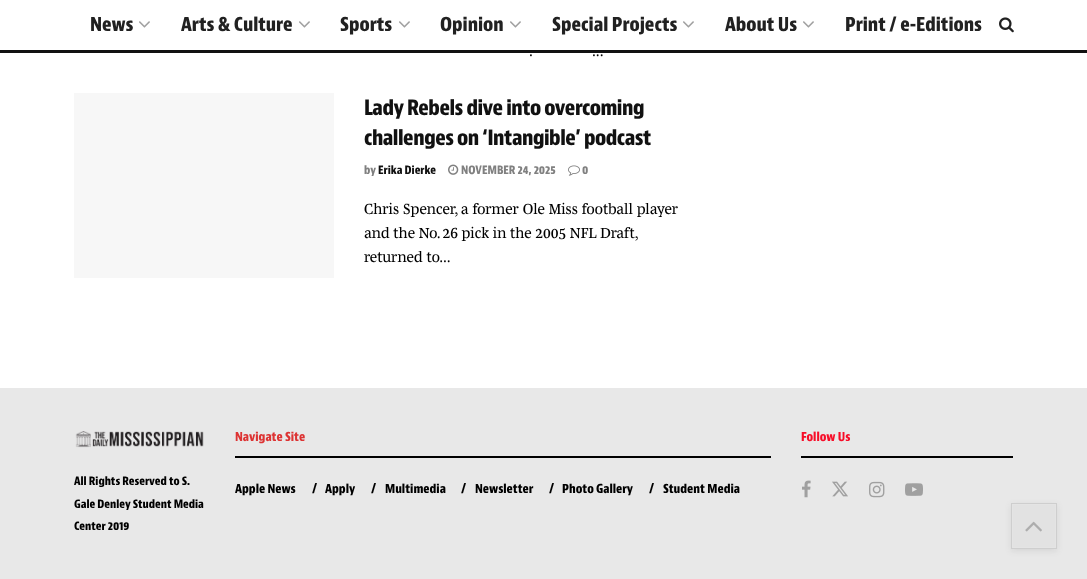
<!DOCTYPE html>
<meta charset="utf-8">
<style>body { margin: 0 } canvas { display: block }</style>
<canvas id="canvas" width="1087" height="579"></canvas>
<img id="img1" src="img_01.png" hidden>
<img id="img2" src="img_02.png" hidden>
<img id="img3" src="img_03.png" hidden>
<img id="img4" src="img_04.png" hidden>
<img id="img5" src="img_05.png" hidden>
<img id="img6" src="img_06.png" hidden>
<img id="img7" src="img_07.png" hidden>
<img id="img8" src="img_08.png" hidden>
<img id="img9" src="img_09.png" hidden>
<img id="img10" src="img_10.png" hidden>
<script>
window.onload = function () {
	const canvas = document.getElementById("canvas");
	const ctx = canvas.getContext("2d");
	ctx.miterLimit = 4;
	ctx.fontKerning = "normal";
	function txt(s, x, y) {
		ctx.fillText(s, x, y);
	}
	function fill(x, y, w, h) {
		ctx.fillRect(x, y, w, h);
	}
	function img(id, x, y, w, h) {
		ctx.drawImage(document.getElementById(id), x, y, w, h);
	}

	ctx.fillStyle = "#FFFFFF";
	fill(0, 0, 1087, 579);
	ctx.fillStyle = "#111111";
	fill(0, 50, 1087, 3);
	img("img1", 139, 21, 11, 7);
	img("img1", 299, 21, 11, 7);
	img("img1", 399, 21, 11, 7);
	img("img1", 510, 21, 11, 7);
	img("img1", 683, 21, 11, 7);
	img("img1", 803, 21, 11, 7);
	img("img2", 999, 17, 15, 16);
	ctx.fillStyle = "#F7F7F7";
	fill(74, 93, 260, 185);
	img("img3", 448, 164, 11, 11);
	img("img4", 568, 165, 12, 11);
	ctx.fillStyle = "#E8E8E8";
	fill(0, 388, 1087, 191);
	ctx.fillStyle = "#000000";
	fill(235, 456, 536, 2);
	fill(801, 456, 212, 2);
	img("img5", 802, 480, 9, 18);
	img("img6", 832, 481, 16, 16);
	img("img7", 869, 481, 16, 17);
	img("img8", 905, 483, 18, 13);
	img("img9", 75, 431, 129, 17);
	ctx.fillStyle = "rgba(46, 46, 46, 0.1)";
	ctx.filter = "blur(3px)";
	ctx.beginPath();
	ctx.rect(1011, 505, 46, 46);
	ctx.fill();
	ctx.filter = "none";
	ctx.fillStyle = "#E2E2E2";
	ctx.beginPath();
	ctx.rect(1012.5, 504.5, 43, 43);
	ctx.fill();
	ctx.strokeStyle = "#E4E4E4";
	ctx.stroke();
	ctx.strokeStyle = "#CECECE";
	ctx.strokeRect(1011.5, 503.5, 45, 45);
	img("img10", 1025, 521, 17, 11);
	ctx.font = "800 20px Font";
	ctx.fillStyle = "#212121";
	txt("News", 90, 31);
	txt("Arts & Culture", 181, 31);
	txt("Sports", 340, 31);
	txt("Opinion", 440, 31);
	txt("Special Projects", 552, 31);
	txt("About Us", 725, 31);
	txt("Print / e-Editions", 845, 31);
	ctx.font = "15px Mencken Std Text";
	ctx.fillStyle = "#000000";
	txt(".", 529, 56);
	txt("...", 592, 56);
	ctx.letterSpacing = "-0.45px";
	ctx.font = "800 22px Font";
	ctx.fillStyle = "#111111";
	txt("Lady Rebels dive into overcoming", 364, 115);
	txt("challenges on ‘Intangible’ podcast", 364, 145);
	ctx.letterSpacing = "0px";
	ctx.font = "800 12px Font";
	ctx.fillStyle = "#808080";
	txt("by", 364, 174);
	ctx.fillStyle = "#111111";
	txt("Erika Dierke", 378, 174);
	ctx.fillStyle = "#808080";
	txt("NOVEMBER 24, 2025", 461, 174);
	txt("0", 582, 174);
	ctx.font = "15px Mencken Std Text";
	ctx.fillStyle = "#000000";
	txt("Chris Spencer, a former Ole Miss football player", 364, 214);
	ctx.wordSpacing = "-0.25px";
	txt("and the No. 26 pick in the 2005 NFL Draft,", 364, 238);
	ctx.wordSpacing = "0px";
	txt("returned to...", 364, 262);
	ctx.font = "800 13px Font";
	ctx.fillStyle = "#DD3333";
	txt("Navigate Site", 235, 441);
	ctx.fillStyle = "#000000";
	txt("Apple News", 235, 493);
	ctx.font = "800 14px Font";
	txt("/", 312, 493);
	ctx.font = "800 13px Font";
	txt("Apply", 325, 493);
	ctx.font = "800 14px Font";
	txt("/", 371, 493);
	ctx.font = "800 13px Font";
	txt("Multimedia", 385, 493);
	ctx.font = "800 14px Font";
	txt("/", 461, 493);
	ctx.font = "800 13px Font";
	txt("Newsletter", 475, 493);
	ctx.font = "800 14px Font";
	txt("/", 549, 493);
	ctx.font = "800 13px Font";
	txt("Photo Gallery", 562, 493);
	ctx.font = "800 14px Font";
	txt("/", 649, 493);
	ctx.font = "800 13px Font";
	txt("Student Media", 663, 493);
	ctx.fillStyle = "#F70D28";
	txt("Follow Us", 801, 441);
	ctx.font = "800 12px Font";
	ctx.fillStyle = "#000000";
	txt("All Rights Reserved to S.", 74, 485);
	txt("Gale Denley Student Media", 74, 508);
	txt("Center 2019", 74, 530);
};
</script>
